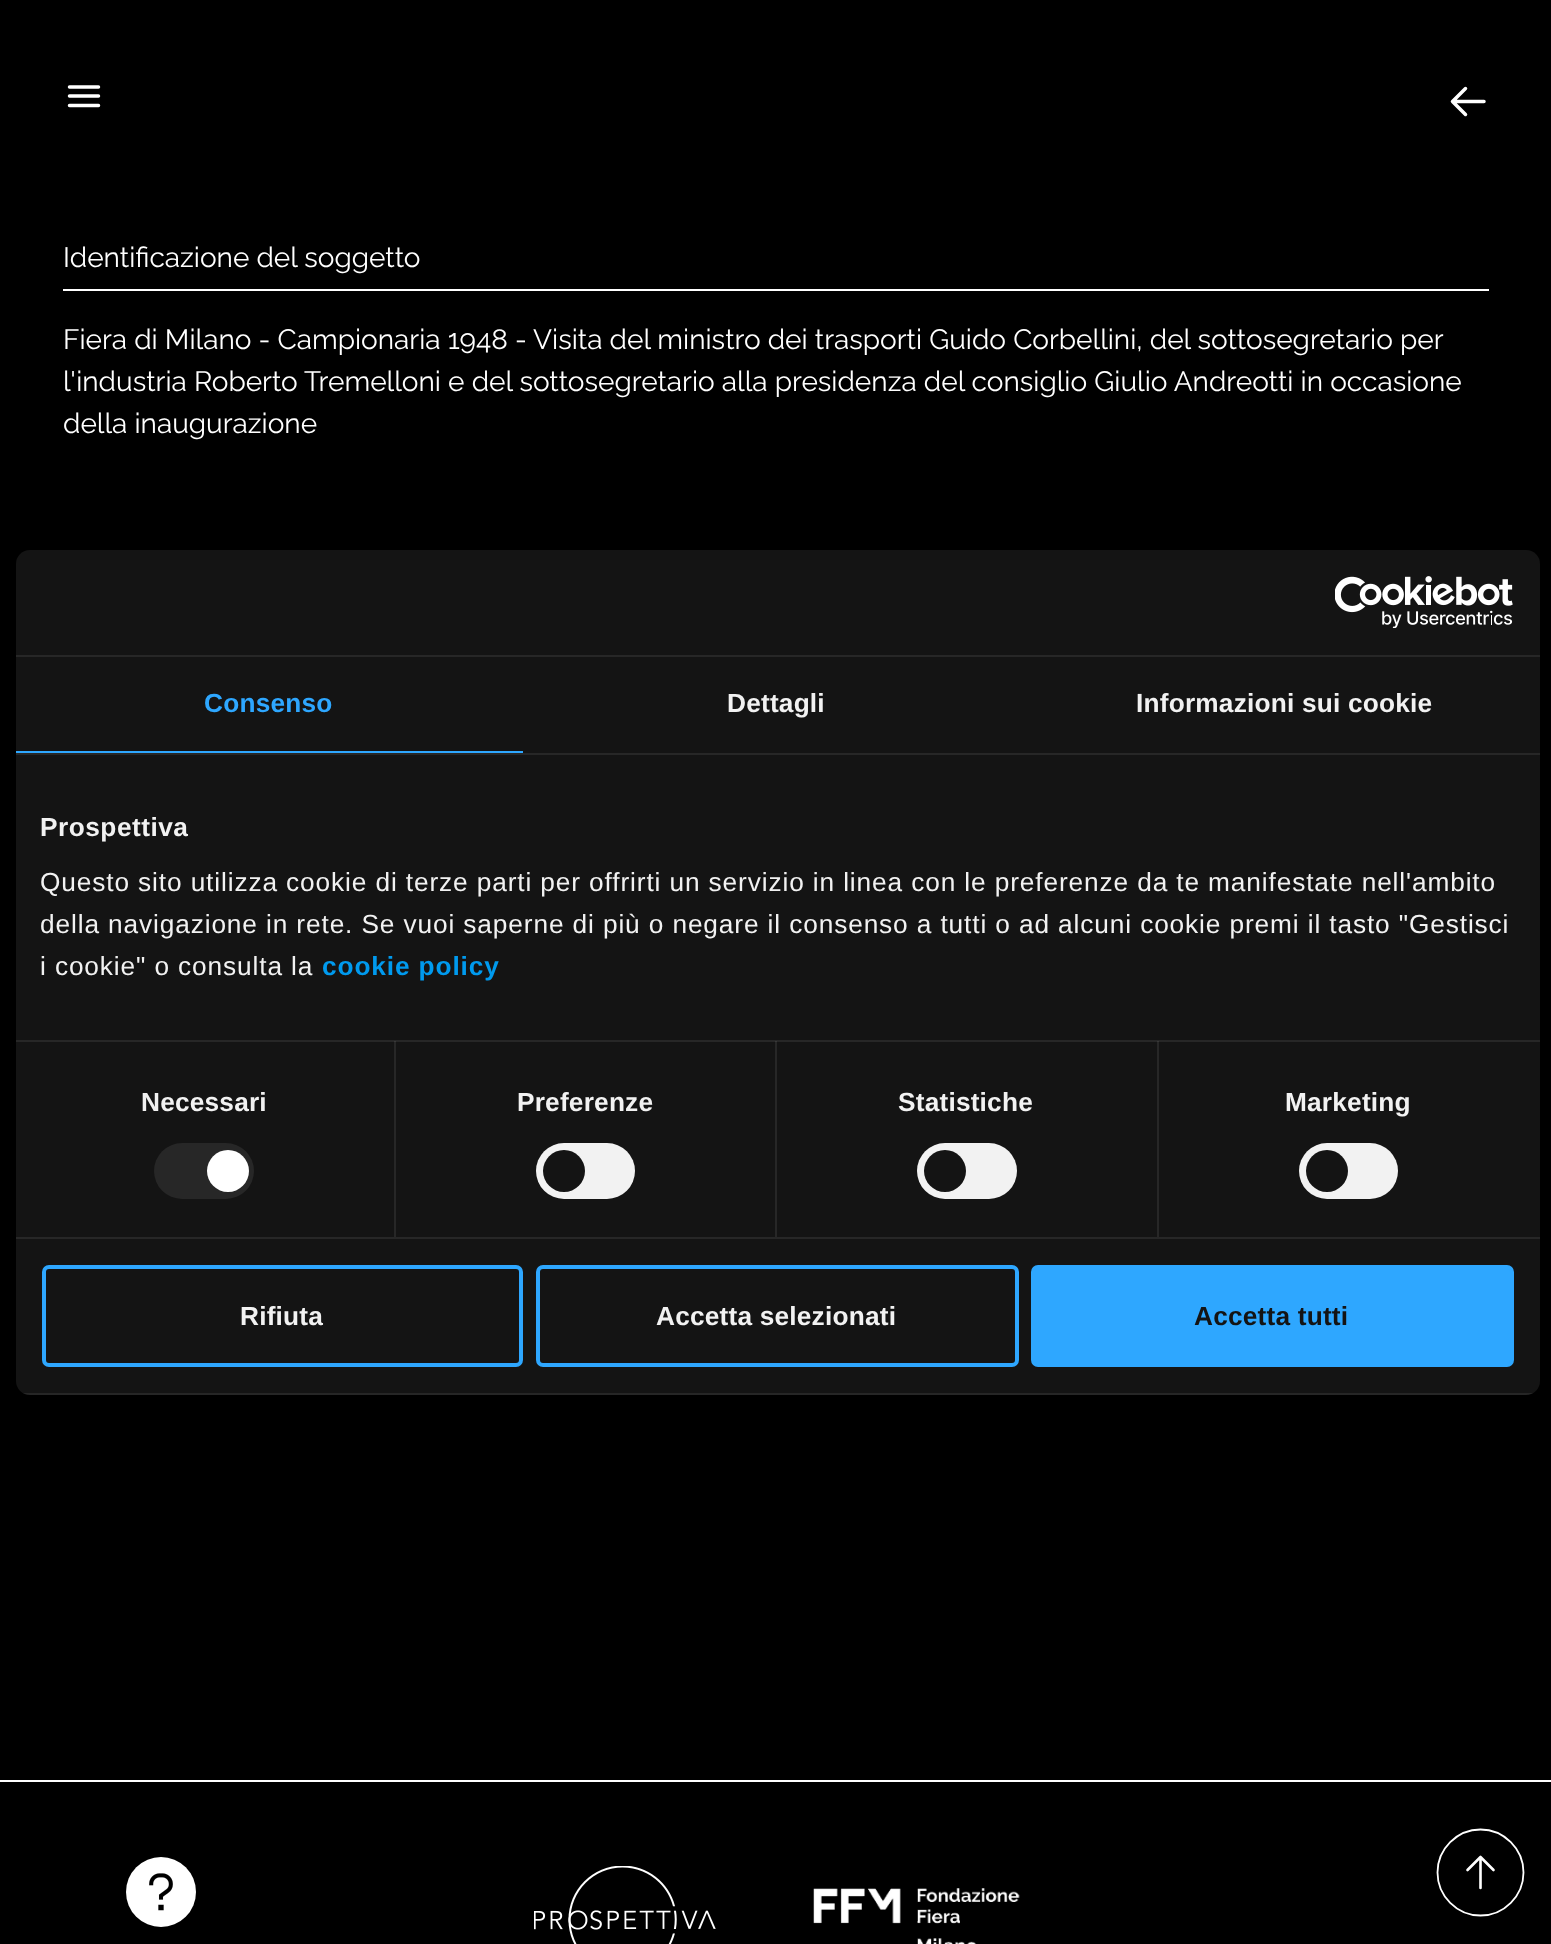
<!DOCTYPE html>
<meta charset="utf-8">
<style>body { margin: 0 } canvas { display: block }</style>
<canvas id="canvas" width="1551" height="1944"></canvas>
<img id="img1" src="img_01.png" hidden>
<img id="img2" src="img_02.png" hidden>
<img id="img3" src="img_03.png" hidden>
<img id="img4" src="img_04.png" hidden>
<script>
window.onload = function () {
	const canvas = document.getElementById("canvas");
	const ctx = canvas.getContext("2d");
	ctx.miterLimit = 4;
	ctx.fontKerning = "normal";
	function txt(s, x, y) {
		ctx.fillText(s, x, y);
	}
	function fill(x, y, w, h) {
		ctx.fillRect(x, y, w, h);
	}
	function round(x, y, w, h, r) {
		ctx.beginPath();
		ctx.roundRect(x, y, w, h, r);
		ctx.fill();
	}
	function img(id, x, y, w, h) {
		ctx.drawImage(document.getElementById(id), x, y, w, h);
	}

	ctx.fillStyle = "#000000";
	fill(0, 0, 1551, 1944);
	ctx.beginPath();
	ctx.moveTo(69.5, 87);
	ctx.lineTo(98.5, 87);
	ctx.moveTo(69.5, 96);
	ctx.lineTo(98.5, 96);
	ctx.moveTo(69.5, 105.5);
	ctx.lineTo(98.5, 105.5);
	ctx.strokeStyle = "#FFFFFF";
	ctx.lineWidth = 3.5;
	ctx.lineCap = "round";
	ctx.lineJoin = "round";
	ctx.stroke();
	ctx.beginPath();
	ctx.moveTo(1465.5, 114.5);
	ctx.lineTo(1452.5, 101.5);
	ctx.moveTo(1452.5, 101.5);
	ctx.lineTo(1465.5, 88.5);
	ctx.moveTo(1452.5, 101.5);
	ctx.lineTo(1484, 101.5);
	ctx.stroke();
	ctx.fillStyle = "#FFFFFF";
	fill(63, 289, 1426, 2);
	ctx.fillStyle = "#141414";
	round(16, 550, 1524, 845, 14);
	ctx.fillStyle = "#272727";
	fill(16, 1040, 1524, 2);
	fill(16, 655, 1524, 2);
	img("img1", 1335, 576, 178, 52);
	fill(16, 753, 1524, 2);
	ctx.fillStyle = "#2EA7FF";
	fill(16, 751, 507, 2);
	ctx.fillStyle = "#272727";
	fill(16, 1237, 1524, 2);
	fill(394, 1041, 2, 196);
	ctx.fillStyle = "#383838";
	fill(394, 1041, 2, 1);
	ctx.fillStyle = "#272727";
	round(154, 1143, 100, 56, 28);
	ctx.fillStyle = "#FFFFFF";
	ctx.beginPath();
	ctx.arc(228, 1171, 21, 0, Math.PI * 2);
	ctx.fill();
	ctx.fillStyle = "#272727";
	fill(775, 1041, 2, 196);
	ctx.fillStyle = "#383838";
	fill(775, 1041, 2, 1);
	ctx.fillStyle = "#F2F2F2";
	round(536, 1143, 99, 56, 28);
	ctx.fillStyle = "#141414";
	ctx.beginPath();
	ctx.arc(564, 1171, 21, 0, Math.PI * 2);
	ctx.fill();
	ctx.fillStyle = "#272727";
	fill(1157, 1041, 2, 196);
	ctx.fillStyle = "#383838";
	fill(1157, 1041, 2, 1);
	ctx.fillStyle = "#F2F2F2";
	round(917, 1143, 100, 56, 28);
	ctx.fillStyle = "#141414";
	ctx.beginPath();
	ctx.arc(945, 1171, 21, 0, Math.PI * 2);
	ctx.fill();
	ctx.fillStyle = "#F2F2F2";
	round(1299, 1143, 99, 56, 28);
	ctx.fillStyle = "#141414";
	ctx.beginPath();
	ctx.arc(1327, 1171, 21, 0, Math.PI * 2);
	ctx.fill();
	ctx.save();
	ctx.beginPath();
	ctx.roundRect(16, 550, 1524, 845, 14);
	ctx.clip();
	ctx.fillStyle = "rgba(255, 255, 255, 0.08)";
	fill(16, 1393, 1524, 2);
	ctx.restore();
	ctx.beginPath();
	ctx.roundRect(44, 1267, 477, 98, 5);
	ctx.strokeStyle = "#2EA7FF";
	ctx.lineWidth = 4;
	ctx.lineJoin = "miter";
	ctx.stroke();
	ctx.beginPath();
	ctx.roundRect(538, 1267, 479, 98, 5);
	ctx.stroke();
	ctx.fillStyle = "#2EA7FF";
	ctx.beginPath();
	ctx.roundRect(1033, 1267, 479, 98, 5);
	ctx.fill();
	ctx.stroke();
	ctx.fillStyle = "#FFFFFF";
	fill(0, 1780, 1551, 2);
	img("img2", 534, 1866, 182, 78);
	img("img3", 813, 1888, 207, 56);
	ctx.beginPath();
	ctx.arc(161, 1892, 35, 0, Math.PI * 2);
	ctx.fill();
	img("img4", 149, 1873, 24, 38);
	ctx.beginPath();
	ctx.moveTo(1437.5, 1872.5);
	ctx.bezierCurveTo(1437.5, 1849, 1457, 1829.5, 1480.5, 1829.5);
	ctx.bezierCurveTo(1504, 1829.5, 1523.5, 1849, 1523.5, 1872.5);
	ctx.bezierCurveTo(1523.5, 1896, 1504, 1915.5, 1480.5, 1915.5);
	ctx.bezierCurveTo(1457, 1915.5, 1437.5, 1896, 1437.5, 1872.5);
	ctx.closePath();
	ctx.strokeStyle = "#FFFFFF";
	ctx.lineWidth = 1.8;
	ctx.lineCap = "butt";
	ctx.stroke();
	ctx.beginPath();
	ctx.moveTo(1467.5, 1870);
	ctx.lineTo(1480.5, 1857);
	ctx.moveTo(1480.5, 1857);
	ctx.lineTo(1493.5, 1870);
	ctx.moveTo(1480.5, 1857);
	ctx.lineTo(1480.5, 1888);
	ctx.lineWidth = 2.6;
	ctx.lineCap = "round";
	ctx.lineJoin = "round";
	ctx.stroke();
	ctx.font = "28px Raleway";
	txt("Identificazione del soggetto", 63, 267);
	txt("Fiera di Milano - Campionaria 1948 - Visita del ministro dei trasporti Guido Corbellini, del sottosegretario per", 63, 349);
	txt("l'industria Roberto Tremelloni e del sottosegretario alla presidenza del consiglio Giulio Andreotti in occasione", 63, 391);
	txt("della inaugurazione", 63, 433);
	ctx.letterSpacing = "0.2px";
	ctx.font = "bold 26.25px Liberation Sans";
	ctx.fillStyle = "#2EA7FF";
	txt("Consenso", 204, 712);
	ctx.fillStyle = "#F2F2F2";
	txt("Dettagli", 727, 712);
	txt("Informazioni sui cookie", 1136, 712);
	ctx.letterSpacing = "0.5px";
	txt("Prospettiva", 40, 836);
	ctx.letterSpacing = "0.88px";
	ctx.font = "26.25px Liberation Sans";
	txt("Questo sito utilizza cookie di terze parti per offrirti un servizio in linea con le preferenze da te manifestate nell'ambito", 40, 891);
	txt("della navigazione in rete. Se vuoi saperne di più o negare il consenso a tutti o ad alcuni cookie premi il tasto \"Gestisci", 40, 933);
	txt("i cookie\" o consulta la", 40, 975);
	ctx.font = "bold 26.25px Liberation Sans";
	ctx.fillStyle = "#009AEE";
	txt("cookie policy", 322, 975);
	ctx.letterSpacing = "0.2px";
	ctx.fillStyle = "#F2F2F2";
	txt("Necessari", 141, 1111);
	txt("Preferenze", 517, 1111);
	txt("Statistiche", 898, 1111);
	txt("Marketing", 1285, 1111);
	txt("Rifiuta", 240, 1325);
	txt("Accetta selezionati", 656, 1325);
	ctx.fillStyle = "#141414";
	txt("Accetta tutti", 1194, 1325);
};
</script>
